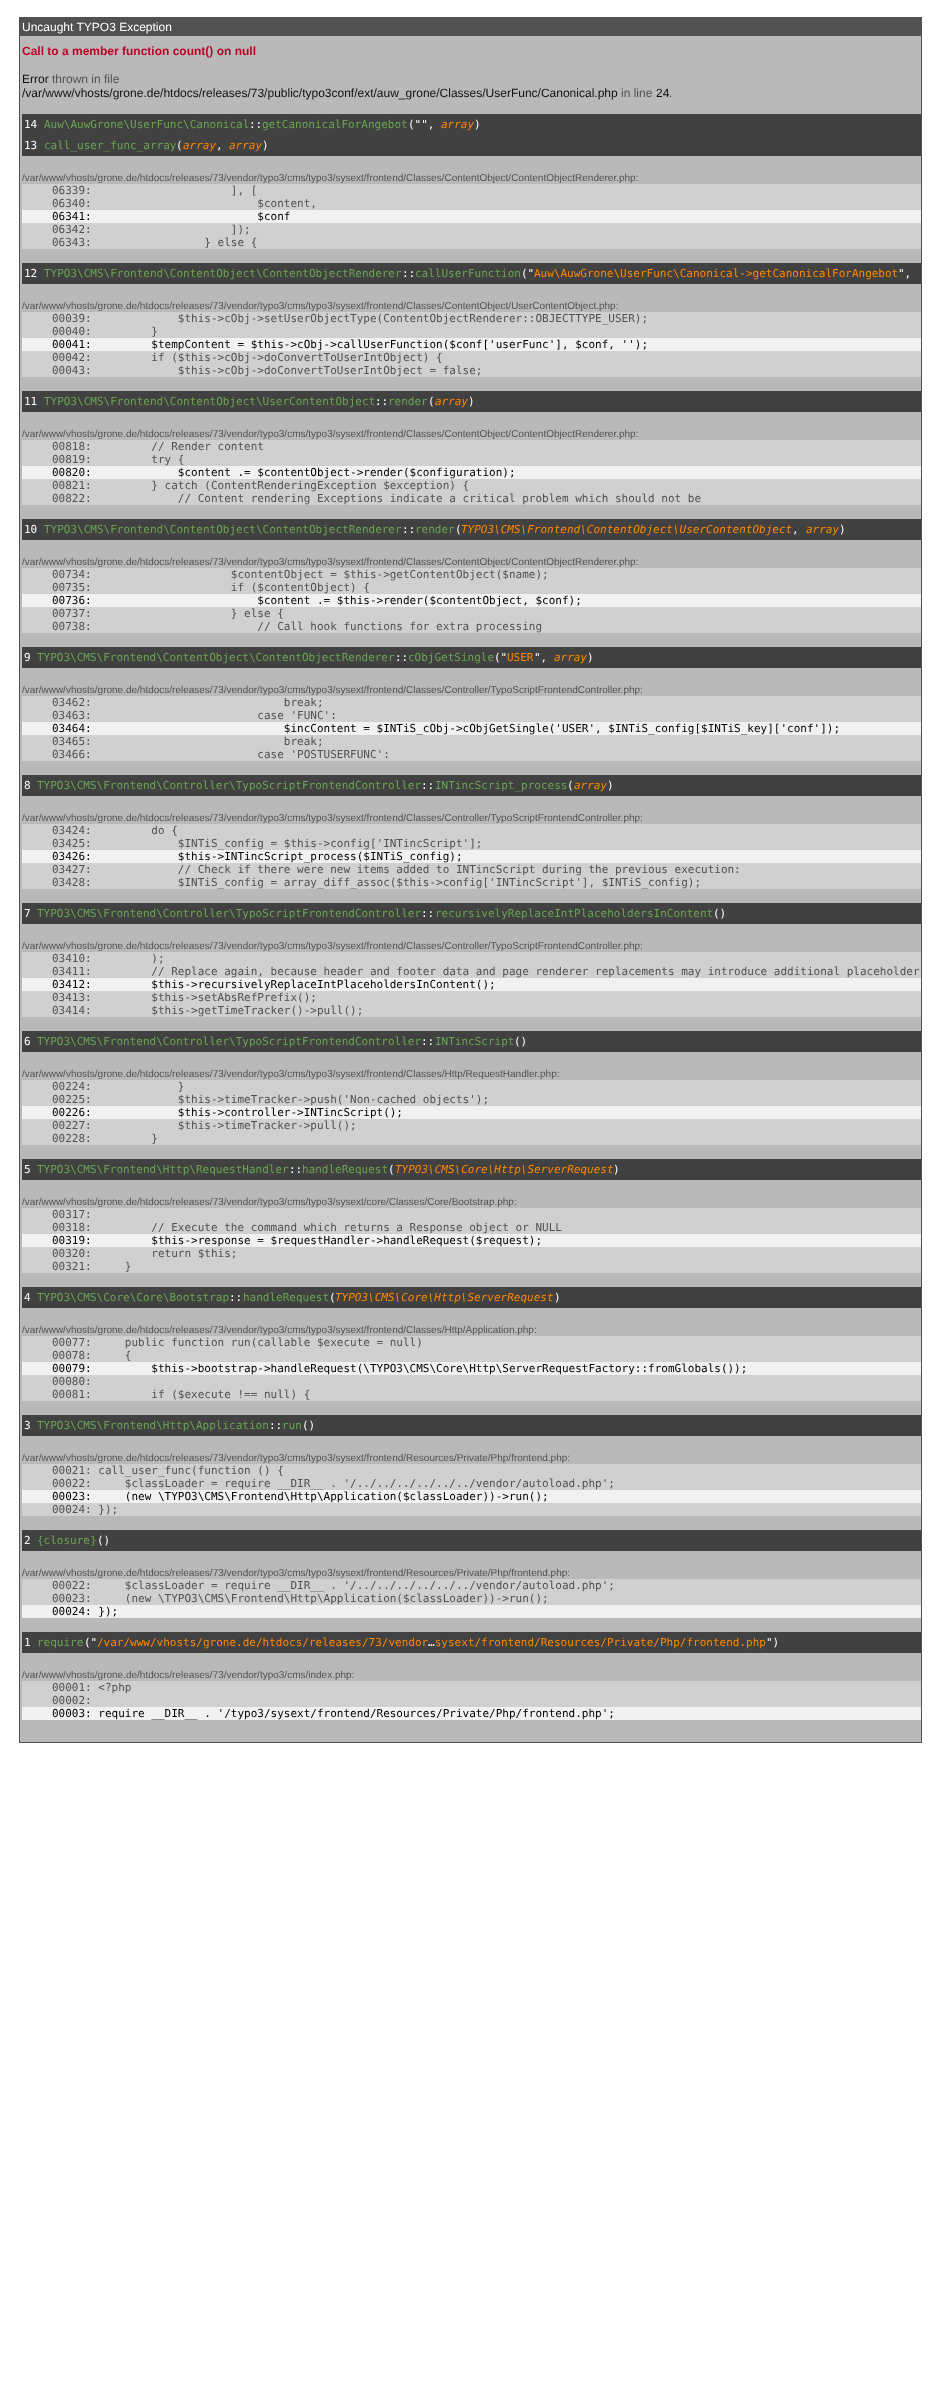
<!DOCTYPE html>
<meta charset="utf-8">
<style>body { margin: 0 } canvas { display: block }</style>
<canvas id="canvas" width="941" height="2390"></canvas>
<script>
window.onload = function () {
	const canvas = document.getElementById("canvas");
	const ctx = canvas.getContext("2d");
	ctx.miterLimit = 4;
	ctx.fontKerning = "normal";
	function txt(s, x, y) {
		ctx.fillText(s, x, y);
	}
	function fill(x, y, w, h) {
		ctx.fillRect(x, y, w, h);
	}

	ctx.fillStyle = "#FFFFFF";
	fill(0, 0, 941, 2390);
	ctx.fillStyle = "#B9B9B9";
	fill(20, 36, 901, 1706);
	ctx.fillStyle = "#515151";
	fill(20, 18, 901, 18);
	ctx.fillStyle = "#414141";
	fill(22, 114, 899, 42);
	ctx.fillStyle = "#D0D0D0";
	fill(22, 184, 899, 26);
	ctx.fillStyle = "#F1F1F1";
	fill(22, 210, 899, 13);
	ctx.fillStyle = "#D0D0D0";
	fill(22, 223, 899, 26);
	ctx.fillStyle = "#414141";
	fill(22, 263, 899, 21);
	ctx.fillStyle = "#D0D0D0";
	fill(22, 312, 899, 26);
	ctx.fillStyle = "#F1F1F1";
	fill(22, 338, 899, 13);
	ctx.fillStyle = "#D0D0D0";
	fill(22, 351, 899, 26);
	ctx.fillStyle = "#414141";
	fill(22, 391, 899, 21);
	ctx.fillStyle = "#D0D0D0";
	fill(22, 440, 899, 26);
	ctx.fillStyle = "#F1F1F1";
	fill(22, 466, 899, 13);
	ctx.fillStyle = "#D0D0D0";
	fill(22, 479, 899, 26);
	ctx.fillStyle = "#414141";
	fill(22, 519, 899, 21);
	ctx.fillStyle = "#D0D0D0";
	fill(22, 568, 899, 26);
	ctx.fillStyle = "#F1F1F1";
	fill(22, 594, 899, 13);
	ctx.fillStyle = "#D0D0D0";
	fill(22, 607, 899, 26);
	ctx.fillStyle = "#414141";
	fill(22, 647, 899, 21);
	ctx.fillStyle = "#D0D0D0";
	fill(22, 696, 899, 26);
	ctx.fillStyle = "#F1F1F1";
	fill(22, 722, 899, 13);
	ctx.fillStyle = "#D0D0D0";
	fill(22, 735, 899, 26);
	ctx.fillStyle = "#414141";
	fill(22, 775, 899, 21);
	ctx.fillStyle = "#D0D0D0";
	fill(22, 824, 899, 26);
	ctx.fillStyle = "#F1F1F1";
	fill(22, 850, 899, 13);
	ctx.fillStyle = "#D0D0D0";
	fill(22, 863, 899, 26);
	ctx.fillStyle = "#414141";
	fill(22, 903, 899, 21);
	ctx.fillStyle = "#D0D0D0";
	fill(22, 952, 899, 26);
	ctx.fillStyle = "#F1F1F1";
	fill(22, 978, 899, 13);
	ctx.fillStyle = "#D0D0D0";
	fill(22, 991, 899, 26);
	ctx.fillStyle = "#414141";
	fill(22, 1031, 899, 21);
	ctx.fillStyle = "#D0D0D0";
	fill(22, 1080, 899, 26);
	ctx.fillStyle = "#F1F1F1";
	fill(22, 1106, 899, 13);
	ctx.fillStyle = "#D0D0D0";
	fill(22, 1119, 899, 26);
	ctx.fillStyle = "#414141";
	fill(22, 1159, 899, 21);
	ctx.fillStyle = "#D0D0D0";
	fill(22, 1208, 899, 26);
	ctx.fillStyle = "#F1F1F1";
	fill(22, 1234, 899, 13);
	ctx.fillStyle = "#D0D0D0";
	fill(22, 1247, 899, 26);
	ctx.fillStyle = "#414141";
	fill(22, 1287, 899, 21);
	ctx.fillStyle = "#D0D0D0";
	fill(22, 1336, 899, 26);
	ctx.fillStyle = "#F1F1F1";
	fill(22, 1362, 899, 13);
	ctx.fillStyle = "#D0D0D0";
	fill(22, 1375, 899, 26);
	ctx.fillStyle = "#414141";
	fill(22, 1415, 899, 21);
	ctx.fillStyle = "#D0D0D0";
	fill(22, 1464, 899, 26);
	ctx.fillStyle = "#F1F1F1";
	fill(22, 1490, 899, 13);
	ctx.fillStyle = "#D0D0D0";
	fill(22, 1503, 899, 13);
	ctx.fillStyle = "#414141";
	fill(22, 1530, 899, 21);
	ctx.fillStyle = "#D0D0D0";
	fill(22, 1579, 899, 26);
	ctx.fillStyle = "#F1F1F1";
	fill(22, 1605, 899, 13);
	ctx.fillStyle = "#414141";
	fill(22, 1632, 899, 21);
	ctx.fillStyle = "#D0D0D0";
	fill(22, 1681, 899, 26);
	ctx.fillStyle = "#F1F1F1";
	fill(22, 1707, 899, 13);
	ctx.strokeStyle = "#515151";
	ctx.strokeRect(19.5, 17.5, 902, 1725);
	ctx.font = "12px Liberation Sans";
	ctx.fillStyle = "#FFFFFF";
	txt("Uncaught TYPO3 Exception", 22, 31);
	ctx.font = "bold 12px Liberation Sans";
	ctx.fillStyle = "#BE0027";
	txt("Call to a member function count() on null", 22, 55);
	ctx.font = "12px Liberation Sans";
	ctx.fillStyle = "#101010";
	txt("Error", 22, 83);
	ctx.fillStyle = "#515151";
	txt("thrown in file", 52, 83);
	ctx.fillStyle = "#101010";
	txt("/var/www/vhosts/grone.de/htdocs/releases/73/public/typo3conf/ext/auw_grone/Classes/UserFunc/Canonical.php", 22, 97);
	ctx.fillStyle = "#515151";
	txt("in line", 621, 97);
	ctx.fillStyle = "#101010";
	txt("24", 656, 97);
	ctx.fillStyle = "#515151";
	txt(".", 669, 97);
	ctx.font = "11px DejaVu Sans Mono";
	ctx.fillStyle = "#FFFFFF";
	txt("14", 24, 128);
	ctx.fillStyle = "#69A550";
	txt("Auw\\AuwGrone\\UserFunc\\Canonical", 44, 128);
	ctx.fillStyle = "#FFFFFF";
	txt("::", 249, 128);
	ctx.fillStyle = "#69A550";
	txt("getCanonicalForAngebot", 262, 128);
	ctx.fillStyle = "#FFFFFF";
	txt("(\"\",", 408, 128);
	ctx.font = "italic 11px DejaVu Sans Mono";
	ctx.fillStyle = "#FF8700";
	txt("array", 441, 128);
	ctx.font = "11px DejaVu Sans Mono";
	ctx.fillStyle = "#FFFFFF";
	txt(")", 474, 128);
	txt("13", 24, 149);
	ctx.fillStyle = "#69A550";
	txt("call_user_func_array", 44, 149);
	ctx.fillStyle = "#FFFFFF";
	txt("(", 176, 149);
	ctx.font = "italic 11px DejaVu Sans Mono";
	ctx.fillStyle = "#FF8700";
	txt("array", 183, 149);
	ctx.font = "11px DejaVu Sans Mono";
	ctx.fillStyle = "#FFFFFF";
	txt(",", 216, 149);
	ctx.font = "italic 11px DejaVu Sans Mono";
	ctx.fillStyle = "#FF8700";
	txt("array", 229, 149);
	ctx.font = "11px DejaVu Sans Mono";
	ctx.fillStyle = "#FFFFFF";
	txt(")", 262, 149);
	ctx.font = "10px Liberation Sans";
	ctx.fillStyle = "#515151";
	txt("/var/www/vhosts/grone.de/htdocs/releases/73/vendor/typo3/cms/typo3/sysext/frontend/Classes/ContentObject/ContentObjectRenderer.php:", 22, 181);
	ctx.font = "11px DejaVu Sans Mono";
	txt("06339:                     ], [", 52, 194);
	txt("06340:                         $content,", 52, 207);
	ctx.fillStyle = "#000000";
	txt("06341:                         $conf", 52, 220);
	ctx.fillStyle = "#515151";
	txt("06342:                     ]);", 52, 233);
	txt("06343:                 } else {", 52, 246);
	ctx.fillStyle = "#FFFFFF";
	txt("12", 24, 277);
	ctx.fillStyle = "#69A550";
	txt("TYPO3\\CMS\\Frontend\\ContentObject\\ContentObjectRenderer", 44, 277);
	ctx.fillStyle = "#FFFFFF";
	txt("::", 402, 277);
	ctx.fillStyle = "#69A550";
	txt("callUserFunction", 415, 277);
	ctx.fillStyle = "#FFFFFF";
	txt("(\"", 521, 277);
	ctx.fillStyle = "#FF8700";
	txt("Auw\\AuwGrone\\UserFunc\\Canonical->getCanonicalForAngebot", 534, 277);
	ctx.fillStyle = "#FFFFFF";
	txt("\",", 898, 277);
	ctx.font = "10px Liberation Sans";
	ctx.fillStyle = "#515151";
	txt("/var/www/vhosts/grone.de/htdocs/releases/73/vendor/typo3/cms/typo3/sysext/frontend/Classes/ContentObject/UserContentObject.php:", 22, 309);
	ctx.font = "11px DejaVu Sans Mono";
	txt("00039:             $this->cObj->setUserObjectType(ContentObjectRenderer::OBJECTTYPE_USER);", 52, 322);
	txt("00040:         }", 52, 335);
	ctx.fillStyle = "#000000";
	txt("00041:         $tempContent = $this->cObj->callUserFunction($conf['userFunc'], $conf, '');", 52, 348);
	ctx.fillStyle = "#515151";
	txt("00042:         if ($this->cObj->doConvertToUserIntObject) {", 52, 361);
	txt("00043:             $this->cObj->doConvertToUserIntObject = false;", 52, 374);
	ctx.fillStyle = "#FFFFFF";
	txt("11", 24, 405);
	ctx.fillStyle = "#69A550";
	txt("TYPO3\\CMS\\Frontend\\ContentObject\\UserContentObject", 44, 405);
	ctx.fillStyle = "#FFFFFF";
	txt("::", 375, 405);
	ctx.fillStyle = "#69A550";
	txt("render", 388, 405);
	ctx.fillStyle = "#FFFFFF";
	txt("(", 428, 405);
	ctx.font = "italic 11px DejaVu Sans Mono";
	ctx.fillStyle = "#FF8700";
	txt("array", 435, 405);
	ctx.font = "11px DejaVu Sans Mono";
	ctx.fillStyle = "#FFFFFF";
	txt(")", 468, 405);
	ctx.font = "10px Liberation Sans";
	ctx.fillStyle = "#515151";
	txt("/var/www/vhosts/grone.de/htdocs/releases/73/vendor/typo3/cms/typo3/sysext/frontend/Classes/ContentObject/ContentObjectRenderer.php:", 22, 437);
	ctx.font = "11px DejaVu Sans Mono";
	txt("00818:         // Render content", 52, 450);
	txt("00819:         try {", 52, 463);
	ctx.fillStyle = "#000000";
	txt("00820:             $content .= $contentObject->render($configuration);", 52, 476);
	ctx.fillStyle = "#515151";
	txt("00821:         } catch (ContentRenderingException $exception) {", 52, 489);
	txt("00822:             // Content rendering Exceptions indicate a critical problem which should not be", 52, 502);
	ctx.fillStyle = "#FFFFFF";
	txt("10", 24, 533);
	ctx.fillStyle = "#69A550";
	txt("TYPO3\\CMS\\Frontend\\ContentObject\\ContentObjectRenderer", 44, 533);
	ctx.fillStyle = "#FFFFFF";
	txt("::", 402, 533);
	ctx.fillStyle = "#69A550";
	txt("render", 415, 533);
	ctx.fillStyle = "#FFFFFF";
	txt("(", 455, 533);
	ctx.font = "italic 11px DejaVu Sans Mono";
	ctx.fillStyle = "#FF8700";
	txt("TYPO3\\CMS\\Frontend\\ContentObject\\UserContentObject", 461, 533);
	ctx.font = "11px DejaVu Sans Mono";
	ctx.fillStyle = "#FFFFFF";
	txt(",", 792, 533);
	ctx.font = "italic 11px DejaVu Sans Mono";
	ctx.fillStyle = "#FF8700";
	txt("array", 806, 533);
	ctx.font = "11px DejaVu Sans Mono";
	ctx.fillStyle = "#FFFFFF";
	txt(")", 839, 533);
	ctx.font = "10px Liberation Sans";
	ctx.fillStyle = "#515151";
	txt("/var/www/vhosts/grone.de/htdocs/releases/73/vendor/typo3/cms/typo3/sysext/frontend/Classes/ContentObject/ContentObjectRenderer.php:", 22, 565);
	ctx.font = "11px DejaVu Sans Mono";
	txt("00734:                     $contentObject = $this->getContentObject($name);", 52, 578);
	txt("00735:                     if ($contentObject) {", 52, 591);
	ctx.fillStyle = "#000000";
	txt("00736:                         $content .= $this->render($contentObject, $conf);", 52, 604);
	ctx.fillStyle = "#515151";
	txt("00737:                     } else {", 52, 617);
	txt("00738:                         // Call hook functions for extra processing", 52, 630);
	ctx.fillStyle = "#FFFFFF";
	txt("9", 24, 661);
	ctx.fillStyle = "#69A550";
	txt("TYPO3\\CMS\\Frontend\\ContentObject\\ContentObjectRenderer", 37, 661);
	ctx.fillStyle = "#FFFFFF";
	txt("::", 395, 661);
	ctx.fillStyle = "#69A550";
	txt("cObjGetSingle", 408, 661);
	ctx.fillStyle = "#FFFFFF";
	txt("(\"", 494, 661);
	ctx.fillStyle = "#FF8700";
	txt("USER", 507, 661);
	ctx.fillStyle = "#FFFFFF";
	txt("\",", 534, 661);
	ctx.font = "italic 11px DejaVu Sans Mono";
	ctx.fillStyle = "#FF8700";
	txt("array", 554, 661);
	ctx.font = "11px DejaVu Sans Mono";
	ctx.fillStyle = "#FFFFFF";
	txt(")", 587, 661);
	ctx.font = "10px Liberation Sans";
	ctx.fillStyle = "#515151";
	txt("/var/www/vhosts/grone.de/htdocs/releases/73/vendor/typo3/cms/typo3/sysext/frontend/Classes/Controller/TypoScriptFrontendController.php:", 22, 693);
	ctx.font = "11px DejaVu Sans Mono";
	txt("03462:                             break;", 52, 706);
	txt("03463:                         case 'FUNC':", 52, 719);
	ctx.fillStyle = "#000000";
	txt("03464:                             $incContent = $INTiS_cObj->cObjGetSingle('USER', $INTiS_config[$INTiS_key]['conf']);", 52, 732);
	ctx.fillStyle = "#515151";
	txt("03465:                             break;", 52, 745);
	txt("03466:                         case 'POSTUSERFUNC':", 52, 758);
	ctx.fillStyle = "#FFFFFF";
	txt("8", 24, 789);
	ctx.fillStyle = "#69A550";
	txt("TYPO3\\CMS\\Frontend\\Controller\\TypoScriptFrontendController", 37, 789);
	ctx.fillStyle = "#FFFFFF";
	txt("::", 421, 789);
	ctx.fillStyle = "#69A550";
	txt("INTincScript_process", 435, 789);
	ctx.fillStyle = "#FFFFFF";
	txt("(", 567, 789);
	ctx.font = "italic 11px DejaVu Sans Mono";
	ctx.fillStyle = "#FF8700";
	txt("array", 574, 789);
	ctx.font = "11px DejaVu Sans Mono";
	ctx.fillStyle = "#FFFFFF";
	txt(")", 607, 789);
	ctx.font = "10px Liberation Sans";
	ctx.fillStyle = "#515151";
	txt("/var/www/vhosts/grone.de/htdocs/releases/73/vendor/typo3/cms/typo3/sysext/frontend/Classes/Controller/TypoScriptFrontendController.php:", 22, 821);
	ctx.font = "11px DejaVu Sans Mono";
	txt("03424:         do {", 52, 834);
	txt("03425:             $INTiS_config = $this->config['INTincScript'];", 52, 847);
	ctx.fillStyle = "#000000";
	txt("03426:             $this->INTincScript_process($INTiS_config);", 52, 860);
	ctx.fillStyle = "#515151";
	txt("03427:             // Check if there were new items added to INTincScript during the previous execution:", 52, 873);
	txt("03428:             $INTiS_config = array_diff_assoc($this->config['INTincScript'], $INTiS_config);", 52, 886);
	ctx.fillStyle = "#FFFFFF";
	txt("7", 24, 917);
	ctx.fillStyle = "#69A550";
	txt("TYPO3\\CMS\\Frontend\\Controller\\TypoScriptFrontendController", 37, 917);
	ctx.fillStyle = "#FFFFFF";
	txt("::", 421, 917);
	ctx.fillStyle = "#69A550";
	txt("recursivelyReplaceIntPlaceholdersInContent", 435, 917);
	ctx.fillStyle = "#FFFFFF";
	txt("()", 713, 917);
	ctx.font = "10px Liberation Sans";
	ctx.fillStyle = "#515151";
	txt("/var/www/vhosts/grone.de/htdocs/releases/73/vendor/typo3/cms/typo3/sysext/frontend/Classes/Controller/TypoScriptFrontendController.php:", 22, 949);
	ctx.font = "11px DejaVu Sans Mono";
	txt("03410:         );", 52, 962);
	txt("03411:         // Replace again, because header and footer data and page renderer replacements may introduce additional placeholder", 52, 975);
	ctx.fillStyle = "#000000";
	txt("03412:         $this->recursivelyReplaceIntPlaceholdersInContent();", 52, 988);
	ctx.fillStyle = "#515151";
	txt("03413:         $this->setAbsRefPrefix();", 52, 1001);
	txt("03414:         $this->getTimeTracker()->pull();", 52, 1014);
	ctx.fillStyle = "#FFFFFF";
	txt("6", 24, 1045);
	ctx.fillStyle = "#69A550";
	txt("TYPO3\\CMS\\Frontend\\Controller\\TypoScriptFrontendController", 37, 1045);
	ctx.fillStyle = "#FFFFFF";
	txt("::", 421, 1045);
	ctx.fillStyle = "#69A550";
	txt("INTincScript", 435, 1045);
	ctx.fillStyle = "#FFFFFF";
	txt("()", 514, 1045);
	ctx.font = "10px Liberation Sans";
	ctx.fillStyle = "#515151";
	txt("/var/www/vhosts/grone.de/htdocs/releases/73/vendor/typo3/cms/typo3/sysext/frontend/Classes/Http/RequestHandler.php:", 22, 1077);
	ctx.font = "11px DejaVu Sans Mono";
	txt("00224:             }", 52, 1090);
	txt("00225:             $this->timeTracker->push('Non-cached objects');", 52, 1103);
	ctx.fillStyle = "#000000";
	txt("00226:             $this->controller->INTincScript();", 52, 1116);
	ctx.fillStyle = "#515151";
	txt("00227:             $this->timeTracker->pull();", 52, 1129);
	txt("00228:         }", 52, 1142);
	ctx.fillStyle = "#FFFFFF";
	txt("5", 24, 1173);
	ctx.fillStyle = "#69A550";
	txt("TYPO3\\CMS\\Frontend\\Http\\RequestHandler", 37, 1173);
	ctx.fillStyle = "#FFFFFF";
	txt("::", 289, 1173);
	ctx.fillStyle = "#69A550";
	txt("handleRequest", 302, 1173);
	ctx.fillStyle = "#FFFFFF";
	txt("(", 388, 1173);
	ctx.font = "italic 11px DejaVu Sans Mono";
	ctx.fillStyle = "#FF8700";
	txt("TYPO3\\CMS\\Core\\Http\\ServerRequest", 395, 1173);
	ctx.font = "11px DejaVu Sans Mono";
	ctx.fillStyle = "#FFFFFF";
	txt(")", 613, 1173);
	ctx.font = "10px Liberation Sans";
	ctx.fillStyle = "#515151";
	txt("/var/www/vhosts/grone.de/htdocs/releases/73/vendor/typo3/cms/typo3/sysext/core/Classes/Core/Bootstrap.php:", 22, 1205);
	ctx.font = "11px DejaVu Sans Mono";
	txt("00317:", 52, 1218);
	txt("00318:         // Execute the command which returns a Response object or NULL", 52, 1231);
	ctx.fillStyle = "#000000";
	txt("00319:         $this->response = $requestHandler->handleRequest($request);", 52, 1244);
	ctx.fillStyle = "#515151";
	txt("00320:         return $this;", 52, 1257);
	txt("00321:     }", 52, 1270);
	ctx.fillStyle = "#FFFFFF";
	txt("4", 24, 1301);
	ctx.fillStyle = "#69A550";
	txt("TYPO3\\CMS\\Core\\Core\\Bootstrap", 37, 1301);
	ctx.fillStyle = "#FFFFFF";
	txt("::", 229, 1301);
	ctx.fillStyle = "#69A550";
	txt("handleRequest", 243, 1301);
	ctx.fillStyle = "#FFFFFF";
	txt("(", 329, 1301);
	ctx.font = "italic 11px DejaVu Sans Mono";
	ctx.fillStyle = "#FF8700";
	txt("TYPO3\\CMS\\Core\\Http\\ServerRequest", 335, 1301);
	ctx.font = "11px DejaVu Sans Mono";
	ctx.fillStyle = "#FFFFFF";
	txt(")", 554, 1301);
	ctx.font = "10px Liberation Sans";
	ctx.fillStyle = "#515151";
	txt("/var/www/vhosts/grone.de/htdocs/releases/73/vendor/typo3/cms/typo3/sysext/frontend/Classes/Http/Application.php:", 22, 1333);
	ctx.font = "11px DejaVu Sans Mono";
	txt("00077:     public function run(callable $execute = null)", 52, 1346);
	txt("00078:     {", 52, 1359);
	ctx.fillStyle = "#000000";
	txt("00079:         $this->bootstrap->handleRequest(\\TYPO3\\CMS\\Core\\Http\\ServerRequestFactory::fromGlobals());", 52, 1372);
	ctx.fillStyle = "#515151";
	txt("00080:", 52, 1385);
	txt("00081:         if ($execute !== null) {", 52, 1398);
	ctx.fillStyle = "#FFFFFF";
	txt("3", 24, 1429);
	ctx.fillStyle = "#69A550";
	txt("TYPO3\\CMS\\Frontend\\Http\\Application", 37, 1429);
	ctx.fillStyle = "#FFFFFF";
	txt("::", 269, 1429);
	ctx.fillStyle = "#69A550";
	txt("run", 282, 1429);
	ctx.fillStyle = "#FFFFFF";
	txt("()", 302, 1429);
	ctx.font = "10px Liberation Sans";
	ctx.fillStyle = "#515151";
	txt("/var/www/vhosts/grone.de/htdocs/releases/73/vendor/typo3/cms/typo3/sysext/frontend/Resources/Private/Php/frontend.php:", 22, 1461);
	ctx.font = "11px DejaVu Sans Mono";
	txt("00021: call_user_func(function () {", 52, 1474);
	txt("00022:     $classLoader = require __DIR__ . '/../../../../../../vendor/autoload.php';", 52, 1487);
	ctx.fillStyle = "#000000";
	txt("00023:     (new \\TYPO3\\CMS\\Frontend\\Http\\Application($classLoader))->run();", 52, 1500);
	ctx.fillStyle = "#515151";
	txt("00024: });", 52, 1513);
	ctx.fillStyle = "#FFFFFF";
	txt("2", 24, 1544);
	ctx.fillStyle = "#69A550";
	txt("{closure}", 37, 1544);
	ctx.fillStyle = "#FFFFFF";
	txt("()", 97, 1544);
	ctx.font = "10px Liberation Sans";
	ctx.fillStyle = "#515151";
	txt("/var/www/vhosts/grone.de/htdocs/releases/73/vendor/typo3/cms/typo3/sysext/frontend/Resources/Private/Php/frontend.php:", 22, 1576);
	ctx.font = "11px DejaVu Sans Mono";
	txt("00022:     $classLoader = require __DIR__ . '/../../../../../../vendor/autoload.php';", 52, 1589);
	txt("00023:     (new \\TYPO3\\CMS\\Frontend\\Http\\Application($classLoader))->run();", 52, 1602);
	ctx.fillStyle = "#000000";
	txt("00024: });", 52, 1615);
	ctx.fillStyle = "#FFFFFF";
	txt("1", 24, 1646);
	ctx.fillStyle = "#69A550";
	txt("require", 37, 1646);
	ctx.fillStyle = "#FFFFFF";
	txt("(\"", 84, 1646);
	ctx.fillStyle = "#FF8700";
	txt("/var/www/vhosts/grone.de/htdocs/releases/73/vendor sysext/frontend/Resources/Private/Php/frontend.php", 97, 1646);
	ctx.fillStyle = "#FFFFFF";
	txt("\")", 766, 1646);
	txt("…", 428, 1646);
	ctx.font = "10px Liberation Sans";
	ctx.fillStyle = "#515151";
	txt("/var/www/vhosts/grone.de/htdocs/releases/73/vendor/typo3/cms/index.php:", 22, 1678);
	ctx.font = "11px DejaVu Sans Mono";
	txt("00001: <?php", 52, 1691);
	txt("00002:", 52, 1704);
	ctx.fillStyle = "#000000";
	txt("00003: require __DIR__ . '/typo3/sysext/frontend/Resources/Private/Php/frontend.php';", 52, 1717);
};
</script>
